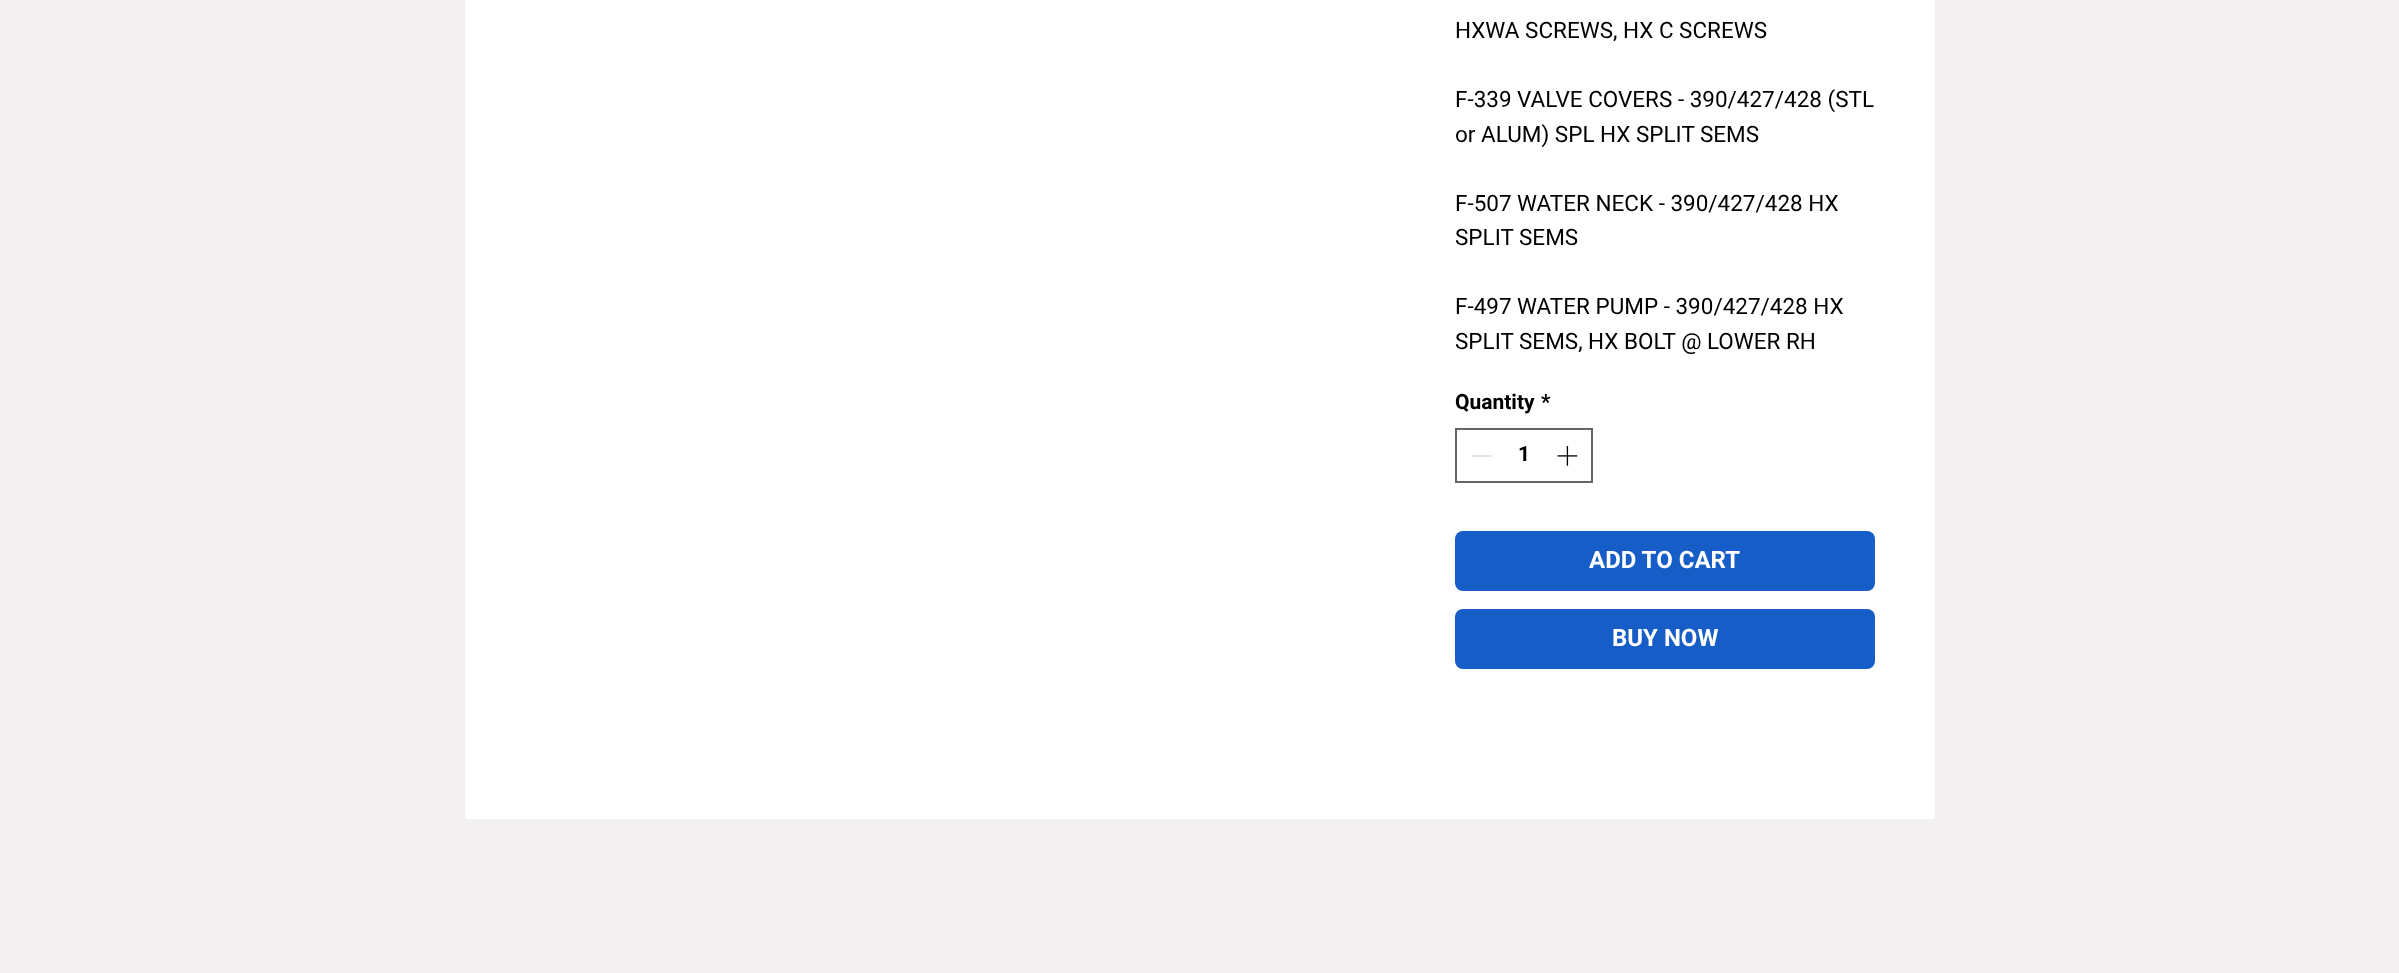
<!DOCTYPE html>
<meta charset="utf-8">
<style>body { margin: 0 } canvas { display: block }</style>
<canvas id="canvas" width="2399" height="973"></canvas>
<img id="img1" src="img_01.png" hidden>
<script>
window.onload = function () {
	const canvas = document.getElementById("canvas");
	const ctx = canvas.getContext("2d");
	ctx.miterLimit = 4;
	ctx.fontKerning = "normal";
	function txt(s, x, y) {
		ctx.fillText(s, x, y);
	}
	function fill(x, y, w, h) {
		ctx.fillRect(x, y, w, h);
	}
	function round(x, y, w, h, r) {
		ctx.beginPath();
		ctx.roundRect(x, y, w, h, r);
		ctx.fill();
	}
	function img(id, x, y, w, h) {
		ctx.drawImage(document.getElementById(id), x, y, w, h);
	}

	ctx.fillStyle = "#F2F0F0";
	fill(0, 0, 2399, 973);
	ctx.fillStyle = "#FFFFFF";
	fill(465, 0, 1470, 819);
	ctx.strokeStyle = "#666666";
	ctx.lineWidth = 2;
	ctx.strokeRect(1456, 429, 136, 53);
	ctx.fillStyle = "#E3E3E3";
	fill(1472, 455, 20, 2);
	img("img1", 1557, 446, 21, 20);
	ctx.fillStyle = "#165DC7";
	round(1455, 531, 420, 60, 8);
	round(1455, 609, 420, 60, 8);
	ctx.font = "22.5px Roboto";
	ctx.fillStyle = "#000000";
	txt("HXWA SCREWS, HX C SCREWS", 1455, 38);
	txt("F-339 VALVE COVERS - 390/427/428 (STL", 1455, 107);
	txt("or ALUM) SPL HX SPLIT SEMS", 1455, 142);
	txt("F-507 WATER NECK - 390/427/428 HX", 1455, 211);
	txt("SPLIT SEMS", 1455, 245);
	txt("F-497 WATER PUMP - 390/427/428 HX", 1455, 314);
	txt("SPLIT SEMS, HX BOLT @ LOWER RH", 1455, 349);
	ctx.font = "bold 21px Roboto";
	txt("Quantity", 1455, 409);
	txt("*", 1541, 409);
	txt("1", 1518, 461);
	ctx.font = "bold 24px Roboto";
	ctx.fillStyle = "#FFFFFF";
	txt("ADD TO CART", 1589, 568);
	txt("BUY NOW", 1612, 646);
};
</script>
